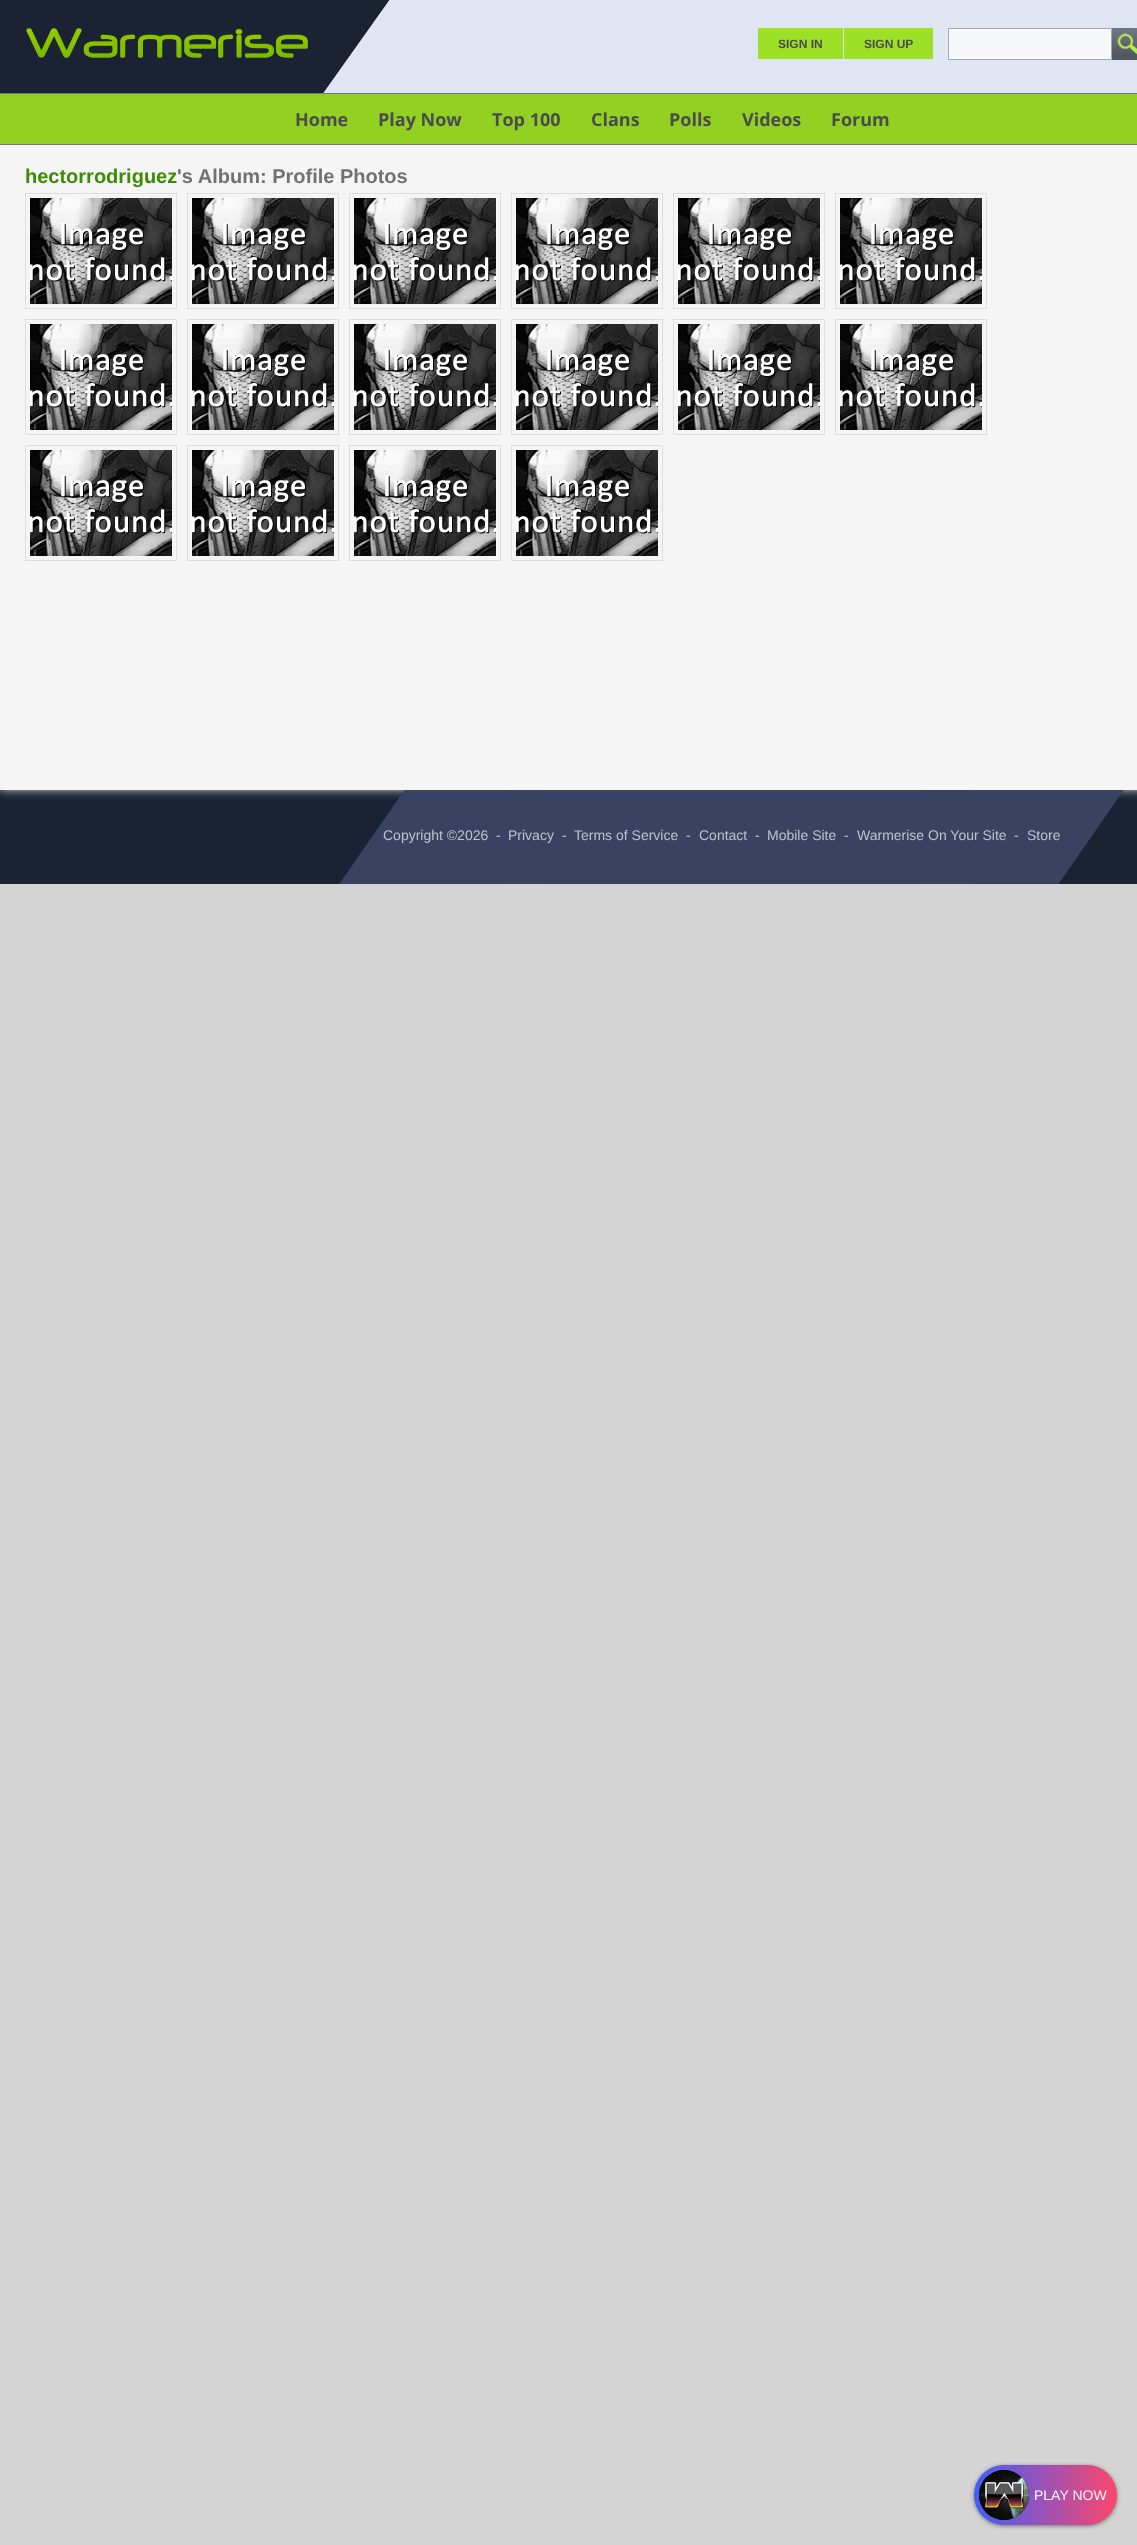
<!DOCTYPE html>
<meta charset="utf-8">
<style>body { margin: 0 } canvas { display: block }</style>
<canvas id="canvas" width="1137" height="2545"></canvas>
<img id="img1" src="img_01.png" hidden>
<img id="img2" src="img_02.png" hidden>
<img id="img3" src="img_03.png" hidden>
<img id="img4" src="img_04.png" hidden>
<img id="img5" src="img_05.png" hidden>
<img id="img6" src="img_06.png" hidden>
<script>
window.onload = function () {
	const canvas = document.getElementById("canvas");
	const ctx = canvas.getContext("2d");
	ctx.miterLimit = 4;
	ctx.fontKerning = "normal";
	function txt(s, x, y) {
		ctx.fillText(s, x, y);
	}
	function fill(x, y, w, h) {
		ctx.fillRect(x, y, w, h);
	}
	function round(x, y, w, h, r) {
		ctx.beginPath();
		ctx.roundRect(x, y, w, h, r);
		ctx.fill();
	}
	function img(id, x, y, w, h) {
		ctx.drawImage(document.getElementById(id), x, y, w, h);
	}
	let gradient;

	ctx.fillStyle = "#D4D4D4";
	fill(0, 0, 1137, 2545);
	ctx.fillStyle = "#1B2234";
	fill(0, 790, 1137, 94);
	ctx.fillStyle = "#CDCDCD";
	ctx.filter = "blur(5px)";
	ctx.beginPath();
	ctx.rect(0, 145, 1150, 645);
	ctx.fill();
	ctx.filter = "none";
	ctx.fillStyle = "#F5F5F5";
	fill(0, 145, 1137, 645);
	ctx.strokeStyle = "#DDDDDD";
	ctx.strokeRect(25.5, 193.5, 151, 115);
	img("img1", 30, 198, 142, 106);
	ctx.strokeRect(187.5, 193.5, 151, 115);
	img("img1", 192, 198, 142, 106);
	ctx.strokeRect(349.5, 193.5, 151, 115);
	img("img1", 354, 198, 142, 106);
	ctx.strokeRect(511.5, 193.5, 151, 115);
	img("img1", 516, 198, 142, 106);
	ctx.strokeRect(673.5, 193.5, 151, 115);
	img("img1", 678, 198, 142, 106);
	ctx.strokeRect(835.5, 193.5, 151, 115);
	img("img1", 840, 198, 142, 106);
	ctx.strokeRect(25.5, 319.5, 151, 115);
	img("img1", 30, 324, 142, 106);
	ctx.strokeRect(187.5, 319.5, 151, 115);
	img("img1", 192, 324, 142, 106);
	ctx.strokeRect(349.5, 319.5, 151, 115);
	img("img1", 354, 324, 142, 106);
	ctx.strokeRect(511.5, 319.5, 151, 115);
	img("img1", 516, 324, 142, 106);
	ctx.strokeRect(673.5, 319.5, 151, 115);
	img("img1", 678, 324, 142, 106);
	ctx.strokeRect(835.5, 319.5, 151, 115);
	img("img1", 840, 324, 142, 106);
	ctx.strokeRect(25.5, 445.5, 151, 115);
	img("img1", 30, 450, 142, 106);
	ctx.strokeRect(187.5, 445.5, 151, 115);
	img("img1", 192, 450, 142, 106);
	ctx.strokeRect(349.5, 445.5, 151, 115);
	img("img1", 354, 450, 142, 106);
	ctx.strokeRect(511.5, 445.5, 151, 115);
	img("img1", 516, 450, 142, 106);
	ctx.fillStyle = "#DFE5F3";
	fill(323, 0, 814, 93);
	img("img2", 0, 0, 390, 93);
	img("img3", 26, 27, 282, 31);
	ctx.fillStyle = "#9CE126";
	fill(758, 28, 85, 31);
	fill(844, 28, 89, 31);
	img("img4", 1112, 28, 25, 32);
	ctx.fillStyle = "#F6F7F9";
	ctx.beginPath();
	ctx.rect(948.5, 28.5, 163, 31);
	ctx.fill();
	ctx.strokeStyle = "#A5A9AC";
	ctx.stroke();
	ctx.fillStyle = "#92D121";
	fill(0, 94, 1137, 50);
	ctx.fillStyle = "#71767A";
	fill(0, 93, 1137, 1);
	fill(0, 144, 1137, 1);
	ctx.fillStyle = "rgba(16, 16, 17, 0.5)";
	ctx.filter = "blur(2px)";
	ctx.beginPath();
	ctx.roundRect(974, 2466, 143, 60, 30);
	ctx.fill();
	ctx.filter = "none";
	gradient = ctx.createLinearGradient(974, 2495, 1117, 2495);
	gradient.addColorStop(0, "#3F5EFB");
	gradient.addColorStop(1, "#FC466B");
	ctx.fillStyle = gradient;
	round(974, 2465, 143, 60, 30);
	ctx.fillStyle = "#0E0E0F";
	ctx.beginPath();
	ctx.arc(1004, 2495, 25, 0, Math.PI * 2);
	ctx.fill();
	img("img5", 979, 2470, 50, 50);
	img("img6", 339, 790, 785, 94);
	ctx.font = "bold 20px Liberation Sans";
	ctx.fillStyle = "#3B8C03";
	txt("hectorrodriguez", 25, 183);
	ctx.fillStyle = "#717171";
	txt("'s Album: Profile Photos", 177, 183);
	ctx.font = "bold 12px Liberation Sans";
	ctx.fillStyle = "#4B4B4E";
	txt("SIGN IN", 778, 48);
	txt("SIGN UP", 864, 48);
	ctx.font = "bold 18px Open Sans";
	txt("Home", 295, 126);
	txt("Play Now", 378, 126);
	txt("Top 100", 492, 126);
	txt("Clans", 591, 126);
	txt("Polls", 669, 126);
	txt("Videos", 742, 126);
	txt("Forum", 831, 126);
	ctx.font = "14px Liberation Sans";
	ctx.fillStyle = "#FBF5FF";
	txt("PLAY NOW", 1034, 2500);
	ctx.fillStyle = "#BEC2CD";
	txt("Copyright ©2026", 383, 840);
	txt("-", 496, 840);
	txt("Privacy", 508, 840);
	txt("-", 562, 840);
	txt("Terms of Service", 574, 840);
	txt("-", 686, 840);
	txt("Contact", 699, 840);
	txt("-", 755, 840);
	txt("Mobile Site", 767, 840);
	txt("-", 844, 840);
	txt("Warmerise On Your Site", 857, 840);
	txt("-", 1014, 840);
	txt("Store", 1027, 840);
};
</script>
